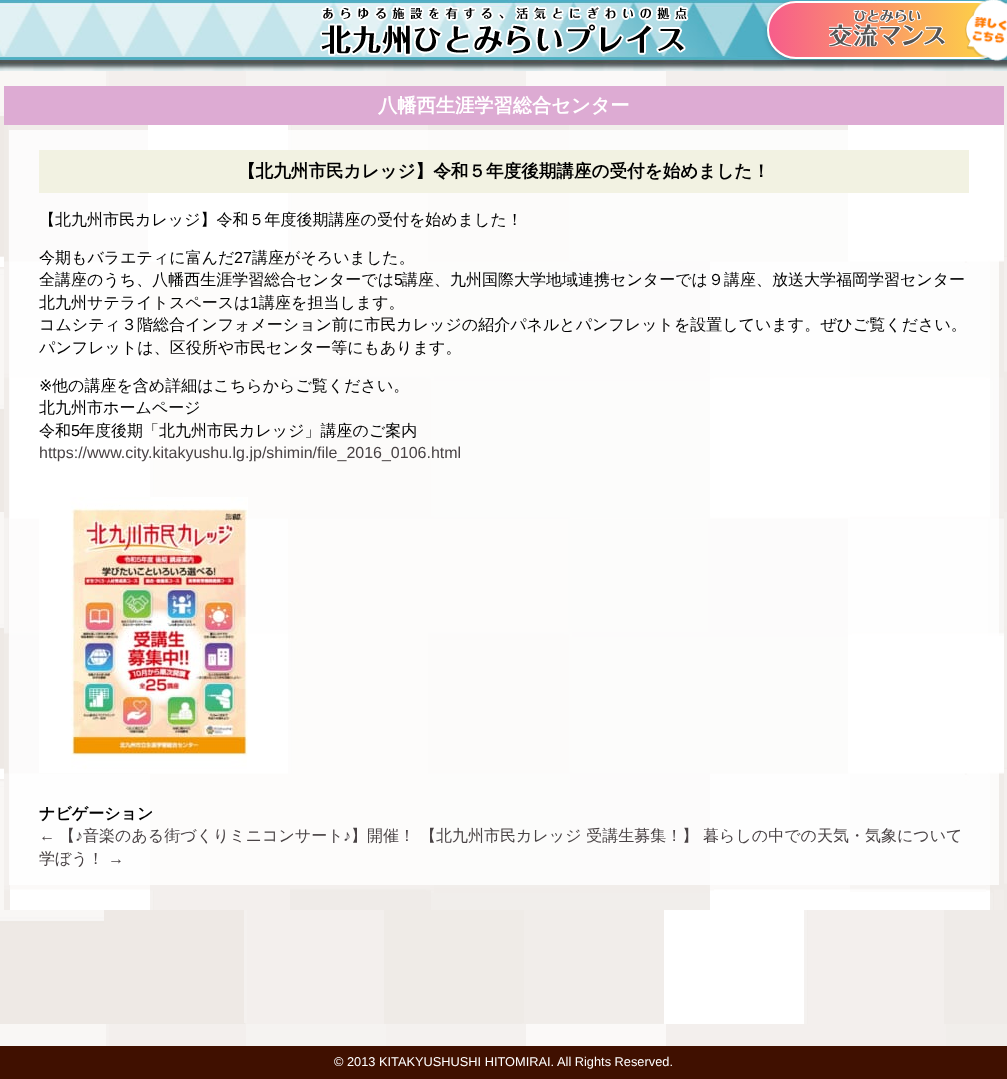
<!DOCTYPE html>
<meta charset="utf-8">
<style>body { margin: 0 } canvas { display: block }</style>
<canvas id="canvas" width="1007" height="1079"></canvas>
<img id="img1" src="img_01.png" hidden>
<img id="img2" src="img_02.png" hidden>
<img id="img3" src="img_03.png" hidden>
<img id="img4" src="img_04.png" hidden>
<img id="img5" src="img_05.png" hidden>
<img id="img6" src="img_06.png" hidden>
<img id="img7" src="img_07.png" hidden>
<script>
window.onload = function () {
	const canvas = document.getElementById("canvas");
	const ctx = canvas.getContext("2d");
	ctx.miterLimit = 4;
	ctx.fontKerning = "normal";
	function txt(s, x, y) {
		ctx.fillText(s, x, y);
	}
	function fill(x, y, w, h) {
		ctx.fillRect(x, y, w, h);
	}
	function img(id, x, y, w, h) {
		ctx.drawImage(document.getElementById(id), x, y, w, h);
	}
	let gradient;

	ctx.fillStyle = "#FFFFFF";
	fill(0, 0, 1007, 1079);
	img("img1", 0, 71, 1007, 975);
	img("img2", 0, 0, 1007, 71);
	img("img3", 319, 5, 370, 51);
	ctx.fillStyle = "rgba(0, 0, 0, 0.2)";
	ctx.filter = "blur(2.5px)";
	ctx.beginPath();
	ctx.roundRect(767, 3, 240, 58, 29);
	ctx.fill();
	ctx.filter = "none";
	ctx.save();
	ctx.beginPath();
	ctx.roundRect(767, 1, 240, 58, 29);
	ctx.clip();
	gradient = ctx.createLinearGradient(769, 30, 1005, 30);
	gradient.addColorStop(0, "#F75D8B");
	gradient.addColorStop(1, "#FEDC40");
	ctx.fillStyle = gradient;
	fill(769, 1, 221, 58);
	ctx.restore();
	ctx.beginPath();
	ctx.roundRect(768, 2, 238, 56, 28);
	ctx.strokeStyle = "#FFFFFF";
	ctx.lineWidth = 2;
	ctx.stroke();
	img("img4", 829, 10, 116, 37);
	img("img5", 965, 0, 42, 61);
	ctx.fillStyle = "#DDABD3";
	fill(4, 86, 1000, 39);
	img("img6", 4, 125, 1000, 785);
	ctx.fillStyle = "#F2F2E2";
	fill(39, 150, 930, 43);
	img("img7", 39, 497, 209, 276);
	ctx.fillStyle = "#401000";
	fill(0, 1046, 1007, 33);
	ctx.font = "bold 19.25px WenQuanYi Zen Hei";
	ctx.fillStyle = "#FFFFFF";
	txt("八幡西生涯学習総合センター", 378, 112);
	ctx.font = "bold 17.6px WenQuanYi Zen Hei";
	ctx.fillStyle = "#000000";
	txt("【北九州市民カレッジ】令和５年度後期講座の受付を始めました！", 238, 177);
	ctx.font = "500 16px WenQuanYi Zen Hei";
	txt("【北九州市民カレッジ】令和５年度後期講座の受付を始めました！", 39, 225);
	txt("今期もバラエティに富んだ", 39, 263);
	ctx.font = "16px Liberation Sans";
	txt("27", 234, 263);
	ctx.font = "500 16px WenQuanYi Zen Hei";
	txt("講座がそろいました。", 252, 263);
	txt("全講座のうち、八幡西生涯学習総合センターでは", 39, 285);
	ctx.font = "16px Liberation Sans";
	txt("5", 394, 285);
	ctx.font = "500 16px WenQuanYi Zen Hei";
	txt("講座、九州国際大学地域連携センターでは９講座、放送大学福岡学習センター", 402, 285);
	txt("北九州サテライトスペースは", 39, 308);
	ctx.font = "16px Liberation Sans";
	txt("1", 250, 308);
	ctx.font = "500 16px WenQuanYi Zen Hei";
	txt("講座を担当します。", 259, 308);
	txt("コムシティ３階総合インフォメーション前に市民カレッジの紹介パネルとパンフレットを設置しています。ぜひご覧ください。", 39, 330);
	txt("パンフレットは、区役所や市民センター等にもあります。", 39, 353);
	ctx.font = "16px DejaVu Sans";
	txt("※", 39, 391);
	ctx.font = "500 16px WenQuanYi Zen Hei";
	txt("他の講座を含め詳細はこちらからご覧ください。", 52, 391);
	txt("北九州市ホームページ", 39, 413);
	txt("令和", 39, 436);
	ctx.font = "16px Liberation Sans";
	txt("5", 71, 436);
	ctx.font = "500 16px WenQuanYi Zen Hei";
	txt("年度後期「北九州市民カレッジ」講座のご案内", 79, 436);
	ctx.font = "16px Liberation Sans";
	ctx.fillStyle = "#494345";
	txt("https://www.city.kitakyushu.lg.jp/shimin/file_2016_0106.html", 39, 458);
	ctx.font = "bold 16px WenQuanYi Zen Hei";
	ctx.fillStyle = "#000000";
	txt("ナビゲーション", 39, 819);
	ctx.font = "16px Liberation Sans";
	ctx.fillStyle = "#494345";
	txt("←", 39, 841);
	ctx.font = "500 16px WenQuanYi Zen Hei";
	txt("【", 59, 841);
	ctx.font = "16px Liberation Sans";
	txt("♪", 75, 841);
	ctx.font = "500 16px WenQuanYi Zen Hei";
	txt("音楽のある街づくりミニコンサート", 83, 841);
	ctx.font = "16px Liberation Sans";
	txt("♪", 343, 841);
	ctx.font = "500 16px WenQuanYi Zen Hei";
	txt("】開催！", 351, 841);
	txt("【北九州市民カレッジ 受講生募集！】 暮らしの中での天気・気象について", 420, 841);
	txt("学ぼう！", 39, 864);
	ctx.font = "16px Liberation Sans";
	txt("→", 108, 864);
	ctx.font = "12.8px Liberation Sans";
	ctx.fillStyle = "#FFFFFF";
	txt("© 2013 KITAKYUSHUSHI HITOMIRAI. All Rights Reserved.", 334, 1066);
};
</script>
